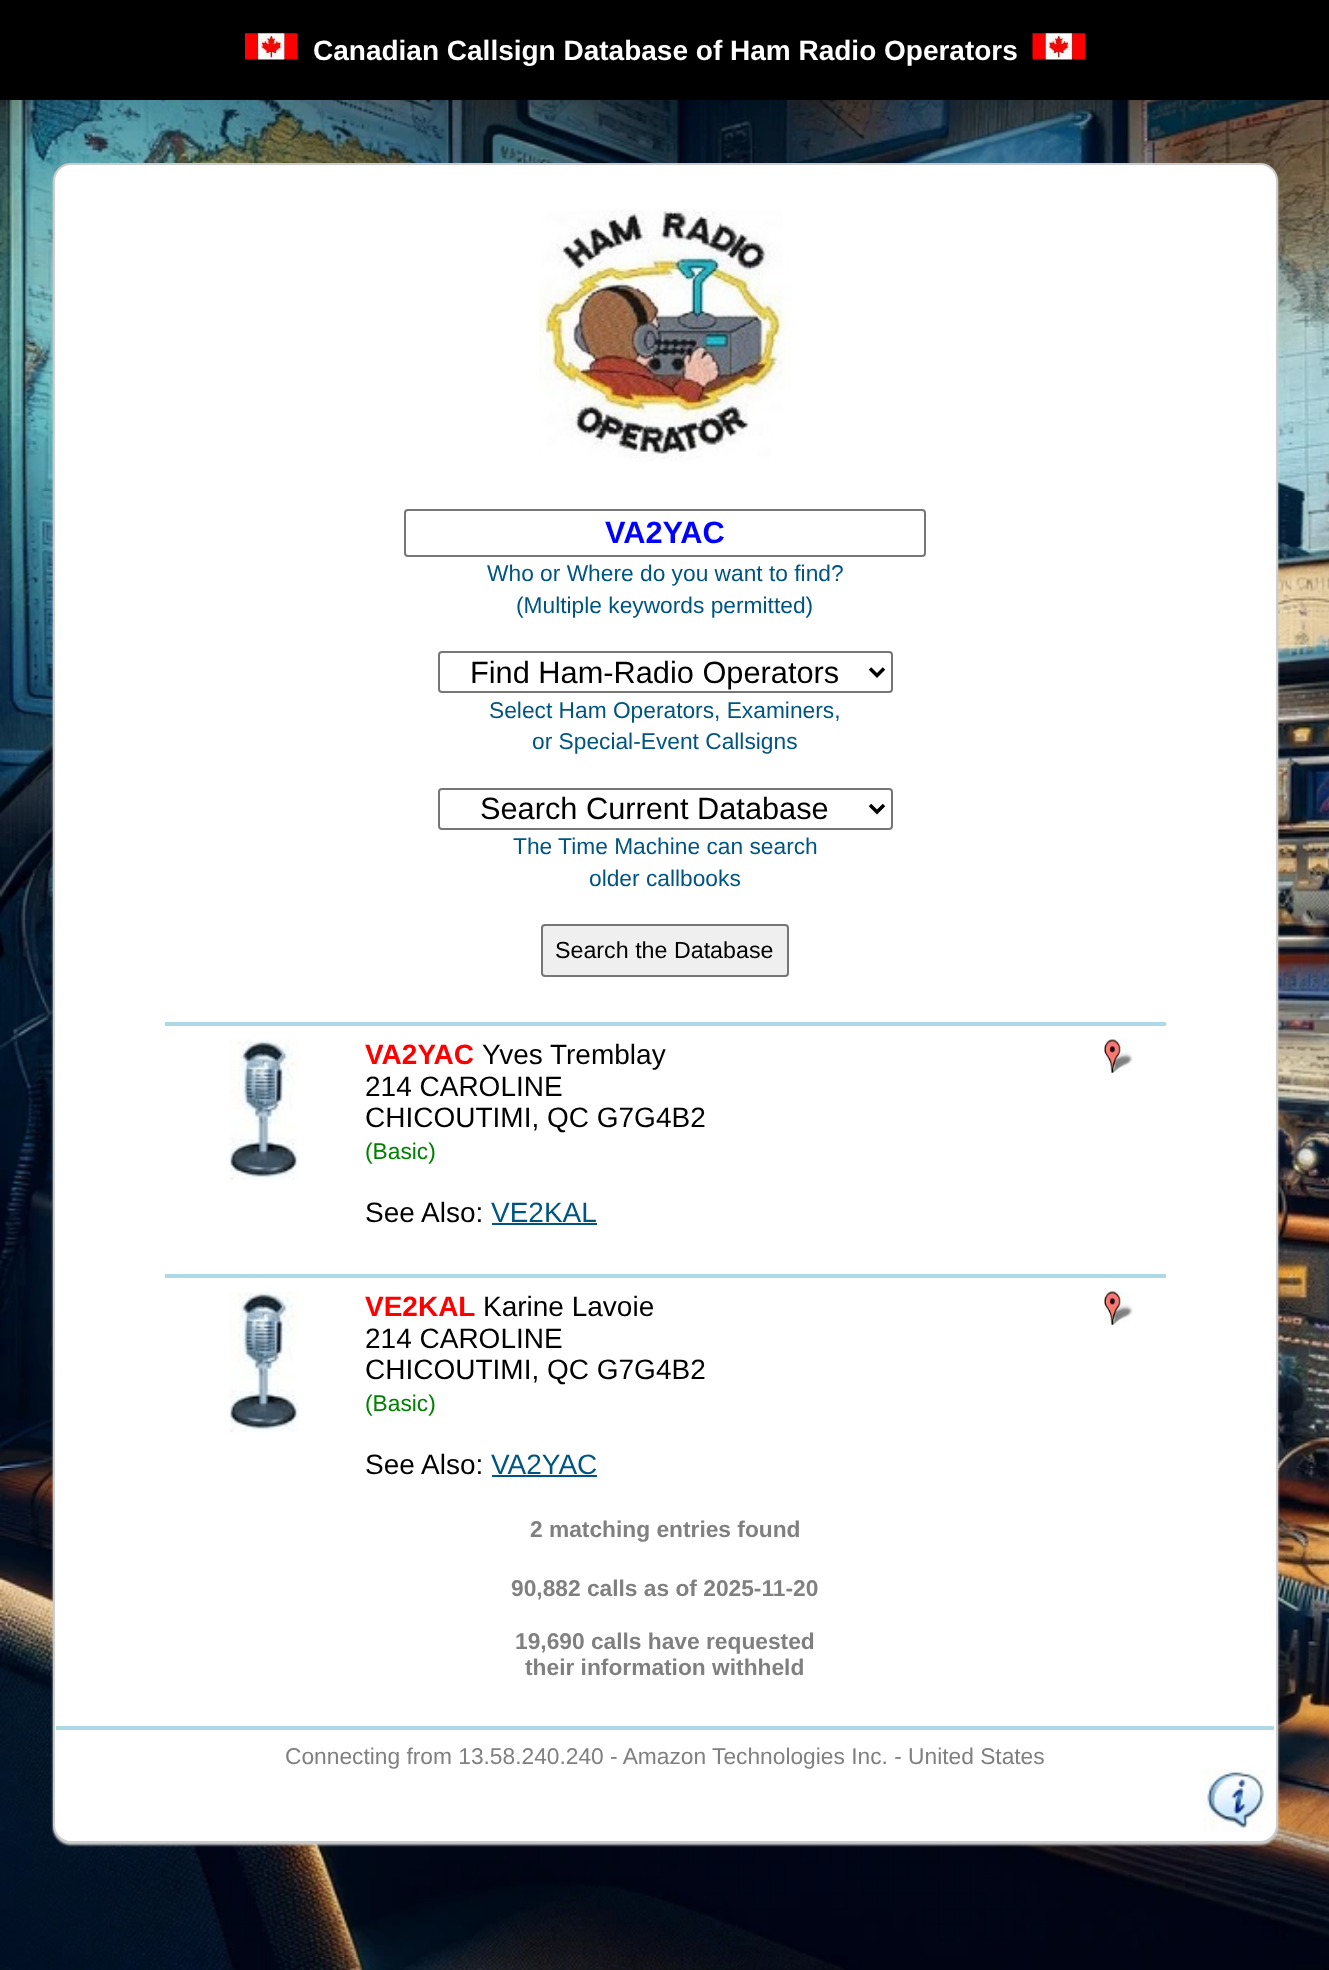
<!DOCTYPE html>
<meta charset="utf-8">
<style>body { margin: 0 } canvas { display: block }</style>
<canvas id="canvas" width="1329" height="1970"></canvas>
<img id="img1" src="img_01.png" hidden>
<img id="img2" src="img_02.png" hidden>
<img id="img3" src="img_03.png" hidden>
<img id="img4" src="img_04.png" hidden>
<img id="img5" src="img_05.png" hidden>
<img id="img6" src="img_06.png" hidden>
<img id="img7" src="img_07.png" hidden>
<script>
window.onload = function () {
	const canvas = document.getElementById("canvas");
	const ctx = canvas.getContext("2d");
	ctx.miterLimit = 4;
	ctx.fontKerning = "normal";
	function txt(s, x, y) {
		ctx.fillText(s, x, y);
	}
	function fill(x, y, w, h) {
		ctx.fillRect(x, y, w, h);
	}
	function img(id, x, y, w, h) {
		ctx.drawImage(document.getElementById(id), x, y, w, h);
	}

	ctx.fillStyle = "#FFFFFF";
	fill(0, 0, 1329, 1970);
	img("img1", 0, 100, 1329, 1870);
	ctx.fillStyle = "#000000";
	fill(0, 0, 1329, 100);
	img("img2", 245, 33, 53, 27);
	img("img3", 1032, 33, 53, 27);
	ctx.fillStyle = "#CCCCCC";
	ctx.filter = "blur(1px)";
	ctx.beginPath();
	ctx.roundRect(53, 165, 1225, 1680, 18);
	ctx.fill();
	ctx.filter = "none";
	ctx.fillStyle = "#FFFFFF";
	ctx.beginPath();
	ctx.roundRect(54, 164, 1223, 1678, 17);
	ctx.fill();
	ctx.strokeStyle = "#CCCCCC";
	ctx.lineWidth = 2;
	ctx.stroke();
	img("img4", 539, 209, 252, 253);
	ctx.beginPath();
	ctx.roundRect(405, 510, 520, 46, 3);
	ctx.strokeStyle = "#767676";
	ctx.stroke();
	ctx.beginPath();
	ctx.roundRect(439, 652, 453, 40, 3);
	ctx.stroke();
	ctx.beginPath();
	ctx.moveTo(870, 668.5);
	ctx.lineTo(877, 675.5);
	ctx.lineTo(884, 668.5);
	ctx.strokeStyle = "#000000";
	ctx.lineWidth = 3.5;
	ctx.stroke();
	ctx.beginPath();
	ctx.roundRect(439, 789, 453, 40, 3);
	ctx.strokeStyle = "#767676";
	ctx.lineWidth = 2;
	ctx.stroke();
	ctx.beginPath();
	ctx.moveTo(870, 805);
	ctx.lineTo(877, 812);
	ctx.lineTo(884, 805);
	ctx.strokeStyle = "#000000";
	ctx.lineWidth = 3.5;
	ctx.stroke();
	ctx.fillStyle = "#EFEFEF";
	ctx.beginPath();
	ctx.roundRect(542, 925, 246, 51, 3);
	ctx.fill();
	ctx.strokeStyle = "#767676";
	ctx.lineWidth = 2;
	ctx.stroke();
	ctx.fillStyle = "#ADD8E6";
	fill(165, 1022, 1001, 4);
	img("img5", 229, 1039, 70, 141);
	ctx.fillStyle = "#005580";
	fill(492, 1223, 105, 2);
	img("img6", 1104, 1039, 29, 34);
	ctx.fillStyle = "#ADD8E6";
	fill(165, 1274, 1001, 4);
	img("img5", 229, 1291, 70, 141);
	ctx.fillStyle = "#005580";
	fill(492, 1475, 105, 2);
	img("img6", 1104, 1291, 29, 34);
	ctx.fillStyle = "#ADD8E6";
	fill(56, 1726, 1218, 4);
	img("img7", 1204, 1769, 63, 63);
	ctx.font = "bold 28px Liberation Sans";
	ctx.fillStyle = "#FFFFFF";
	txt("Canadian Callsign Database of Ham Radio Operators", 313, 60);
	ctx.font = "bold 30.75px Liberation Sans";
	ctx.fillStyle = "#0000FF";
	txt("VA2YAC", 605, 543);
	ctx.font = "22.75px Liberation Sans";
	ctx.fillStyle = "#005580";
	txt("Who or Where do you want to find?", 487, 581);
	txt("(Multiple keywords permitted)", 516, 613);
	ctx.font = "30.75px Liberation Sans";
	ctx.fillStyle = "#000000";
	txt("Find Ham-Radio Operators", 470, 683);
	ctx.font = "22.75px Liberation Sans";
	ctx.fillStyle = "#005580";
	txt("Select Ham Operators, Examiners,", 489, 718);
	txt("or Special-Event Callsigns", 532, 749);
	ctx.font = "30.75px Liberation Sans";
	ctx.fillStyle = "#000000";
	txt("Search Current Database", 480, 819);
	ctx.font = "22.75px Liberation Sans";
	ctx.fillStyle = "#005580";
	txt("The Time Machine can search", 513, 854);
	txt("older callbooks", 589, 886);
	ctx.font = "23.25px Liberation Sans";
	ctx.fillStyle = "#000000";
	txt("Search the Database", 555, 958);
	ctx.font = "bold 28px Liberation Sans";
	ctx.fillStyle = "#FF0000";
	txt("VA2YAC", 365, 1064);
	ctx.font = "28px Liberation Sans";
	ctx.fillStyle = "#000000";
	txt("Yves Tremblay", 482, 1064);
	txt("214 CAROLINE", 365, 1096);
	txt("CHICOUTIMI, QC G7G4B2", 365, 1127);
	ctx.font = "22.75px Liberation Sans";
	ctx.fillStyle = "#008000";
	txt("(Basic)", 365, 1159);
	ctx.font = "28px Liberation Sans";
	ctx.fillStyle = "#000000";
	txt("See Also:", 365, 1222);
	ctx.fillStyle = "#005580";
	txt("VE2KAL", 491, 1222);
	ctx.font = "bold 28px Liberation Sans";
	ctx.fillStyle = "#FF0000";
	txt("VE2KAL", 365, 1316);
	ctx.font = "28px Liberation Sans";
	ctx.fillStyle = "#000000";
	txt("Karine Lavoie", 483, 1316);
	txt("214 CAROLINE", 365, 1348);
	txt("CHICOUTIMI, QC G7G4B2", 365, 1379);
	ctx.font = "22.75px Liberation Sans";
	ctx.fillStyle = "#008000";
	txt("(Basic)", 365, 1411);
	ctx.font = "28px Liberation Sans";
	ctx.fillStyle = "#000000";
	txt("See Also:", 365, 1474);
	ctx.fillStyle = "#005580";
	txt("VA2YAC", 491, 1474);
	ctx.font = "bold 22.75px Liberation Sans";
	ctx.fillStyle = "#808080";
	txt("2 matching entries found", 530, 1537);
	txt("90,882 calls as of 2025-11-20", 511, 1596);
	txt("19,690 calls have requested", 515, 1649);
	txt("their information withheld", 525, 1675);
	ctx.font = "22.75px Liberation Sans";
	txt("Connecting from 13.58.240.240 - Amazon Technologies Inc. - United States", 285, 1764);
};
</script>
